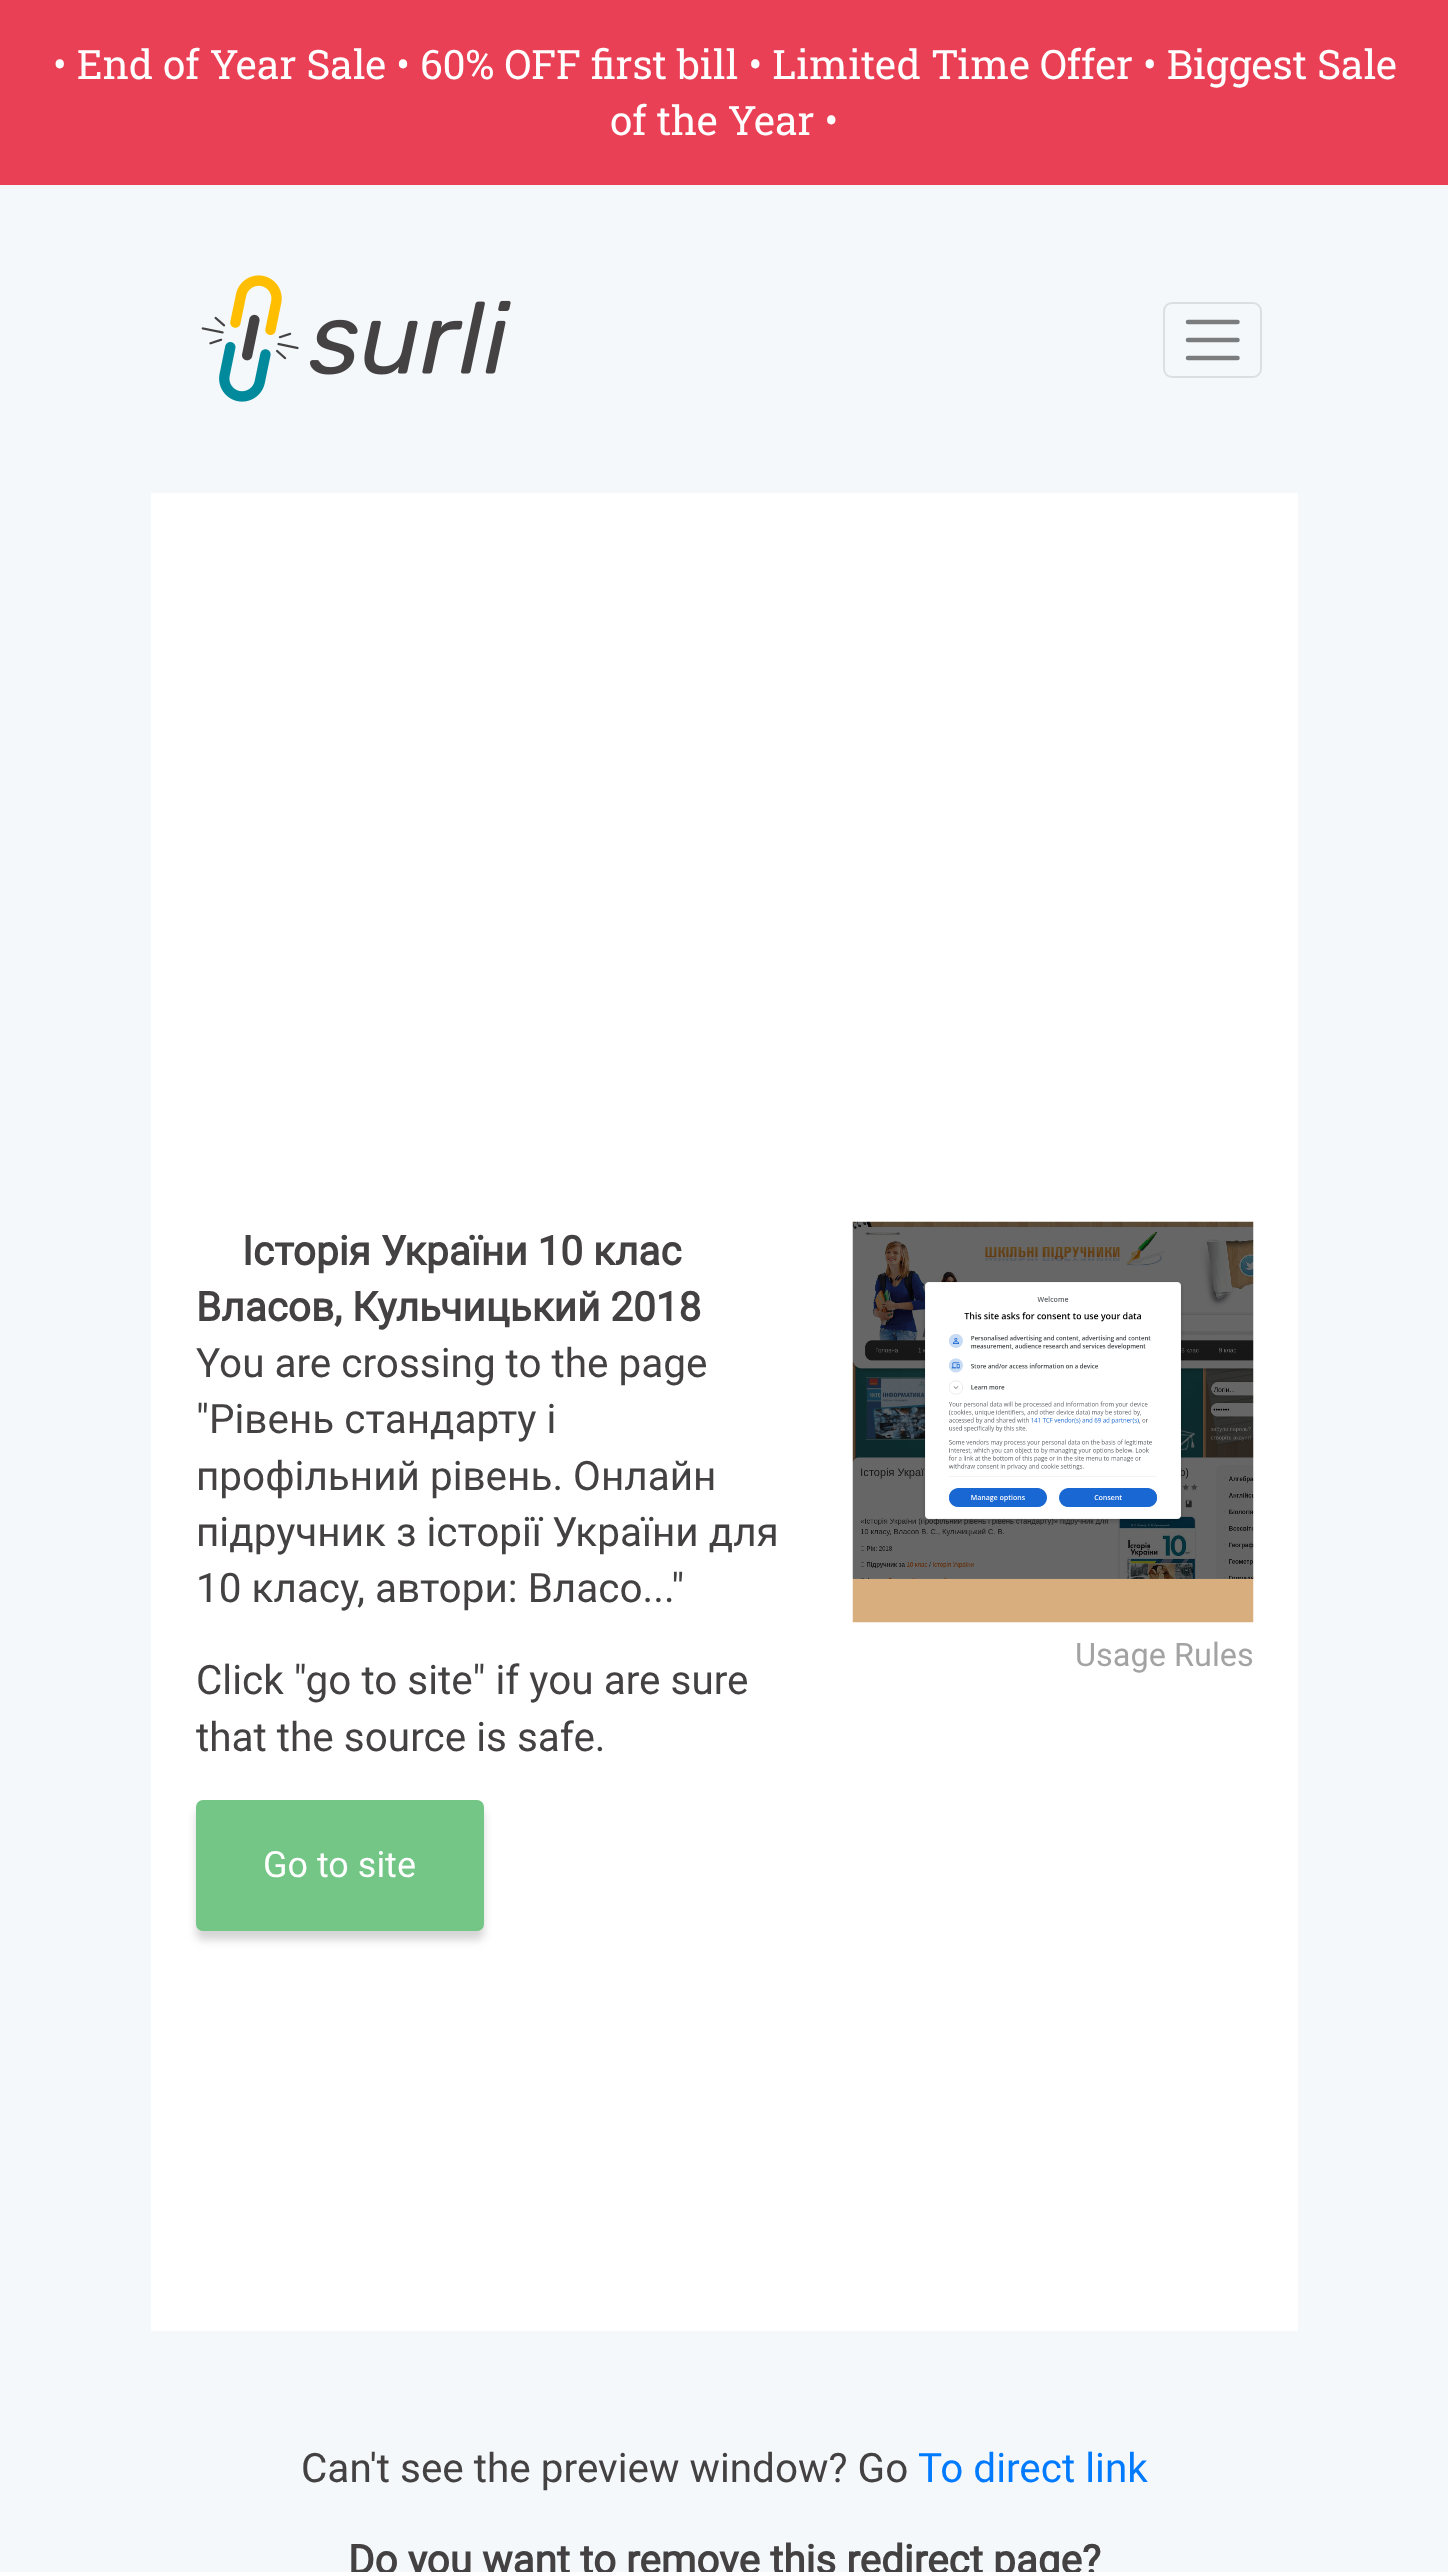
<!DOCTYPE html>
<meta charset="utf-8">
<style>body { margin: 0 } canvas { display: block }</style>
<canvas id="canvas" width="1448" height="2572"></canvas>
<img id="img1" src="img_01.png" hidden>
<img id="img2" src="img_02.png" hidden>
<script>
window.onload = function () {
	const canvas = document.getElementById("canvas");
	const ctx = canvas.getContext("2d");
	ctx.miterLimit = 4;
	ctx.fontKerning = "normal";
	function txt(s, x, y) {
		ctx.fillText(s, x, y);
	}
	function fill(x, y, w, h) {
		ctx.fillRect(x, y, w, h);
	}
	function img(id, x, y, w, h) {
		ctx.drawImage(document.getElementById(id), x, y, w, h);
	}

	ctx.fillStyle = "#F4F8FB";
	fill(0, 0, 1448, 2572);
	ctx.fillStyle = "#EA4056";
	fill(0, 0, 1448, 185);
	img("img1", 201, 275, 310, 127);
	ctx.beginPath();
	ctx.roundRect(1164, 303, 97, 74, 8);
	ctx.strokeStyle = "#DCDFE2";
	ctx.lineWidth = 2;
	ctx.stroke();
	ctx.beginPath();
	ctx.moveTo(1188, 322);
	ctx.lineTo(1237.5, 322);
	ctx.moveTo(1188, 340);
	ctx.lineTo(1237.5, 340);
	ctx.moveTo(1188, 358);
	ctx.lineTo(1237.5, 358);
	ctx.strokeStyle = "#7A7C7E";
	ctx.lineWidth = 4.5;
	ctx.lineCap = "round";
	ctx.stroke();
	ctx.fillStyle = "#FFFFFF";
	fill(151, 493, 1147, 1838);
	ctx.fillStyle = "rgba(89, 89, 89, 0.25)";
	ctx.filter = "blur(4.5px)";
	ctx.beginPath();
	ctx.roundRect(196, 1809, 288, 131, 7);
	ctx.fill();
	ctx.filter = "none";
	ctx.fillStyle = "#73C686";
	ctx.beginPath();
	ctx.roundRect(197, 1801, 286, 129, 6);
	ctx.fill();
	ctx.strokeStyle = "#73C686";
	ctx.lineWidth = 2;
	ctx.stroke();
	img("img2", 852, 1221, 402, 402);
	ctx.font = "40.5px Roboto Slab";
	ctx.fillStyle = "#FFFFFF";
	txt("• End of Year Sale • 60% OFF first bill • Limited Time Offer • Biggest Sale", 53, 79);
	txt("of the Year •", 610, 135);
	ctx.font = "bold 40.5px Roboto";
	ctx.fillStyle = "#434141";
	txt("Історія України 10 клас", 242, 1265);
	txt("Власов, Кульчицький 2018", 196, 1321);
	ctx.font = "40.5px Roboto";
	txt("You are crossing to the page", 196, 1377);
	txt("\"Рівень стандарту і", 196, 1433);
	txt("профільний рівень. Онлайн", 196, 1490);
	txt("підручник з історії України для", 196, 1546);
	txt("10 класу, автори: Власо...\"", 196, 1602);
	txt("Click \"go to site\" if you are sure", 196, 1694);
	txt("that the source is safe.", 196, 1751);
	ctx.font = "36px Roboto";
	ctx.fillStyle = "#FFFFFF";
	txt("Go to site", 263, 1877);
	ctx.font = "32.5px Roboto";
	ctx.fillStyle = "#A3A3A3";
	txt("Usage Rules", 1075, 1666);
	ctx.font = "40.5px Roboto";
	ctx.fillStyle = "#434141";
	txt("Can't see the preview window? Go", 301, 2482);
	ctx.fillStyle = "#007BFF";
	txt("To direct link", 918, 2482);
	ctx.font = "bold 40.5px Roboto";
	ctx.fillStyle = "#434141";
	txt("Do you want to remove this redirect page?", 348, 2574);
};
</script>
